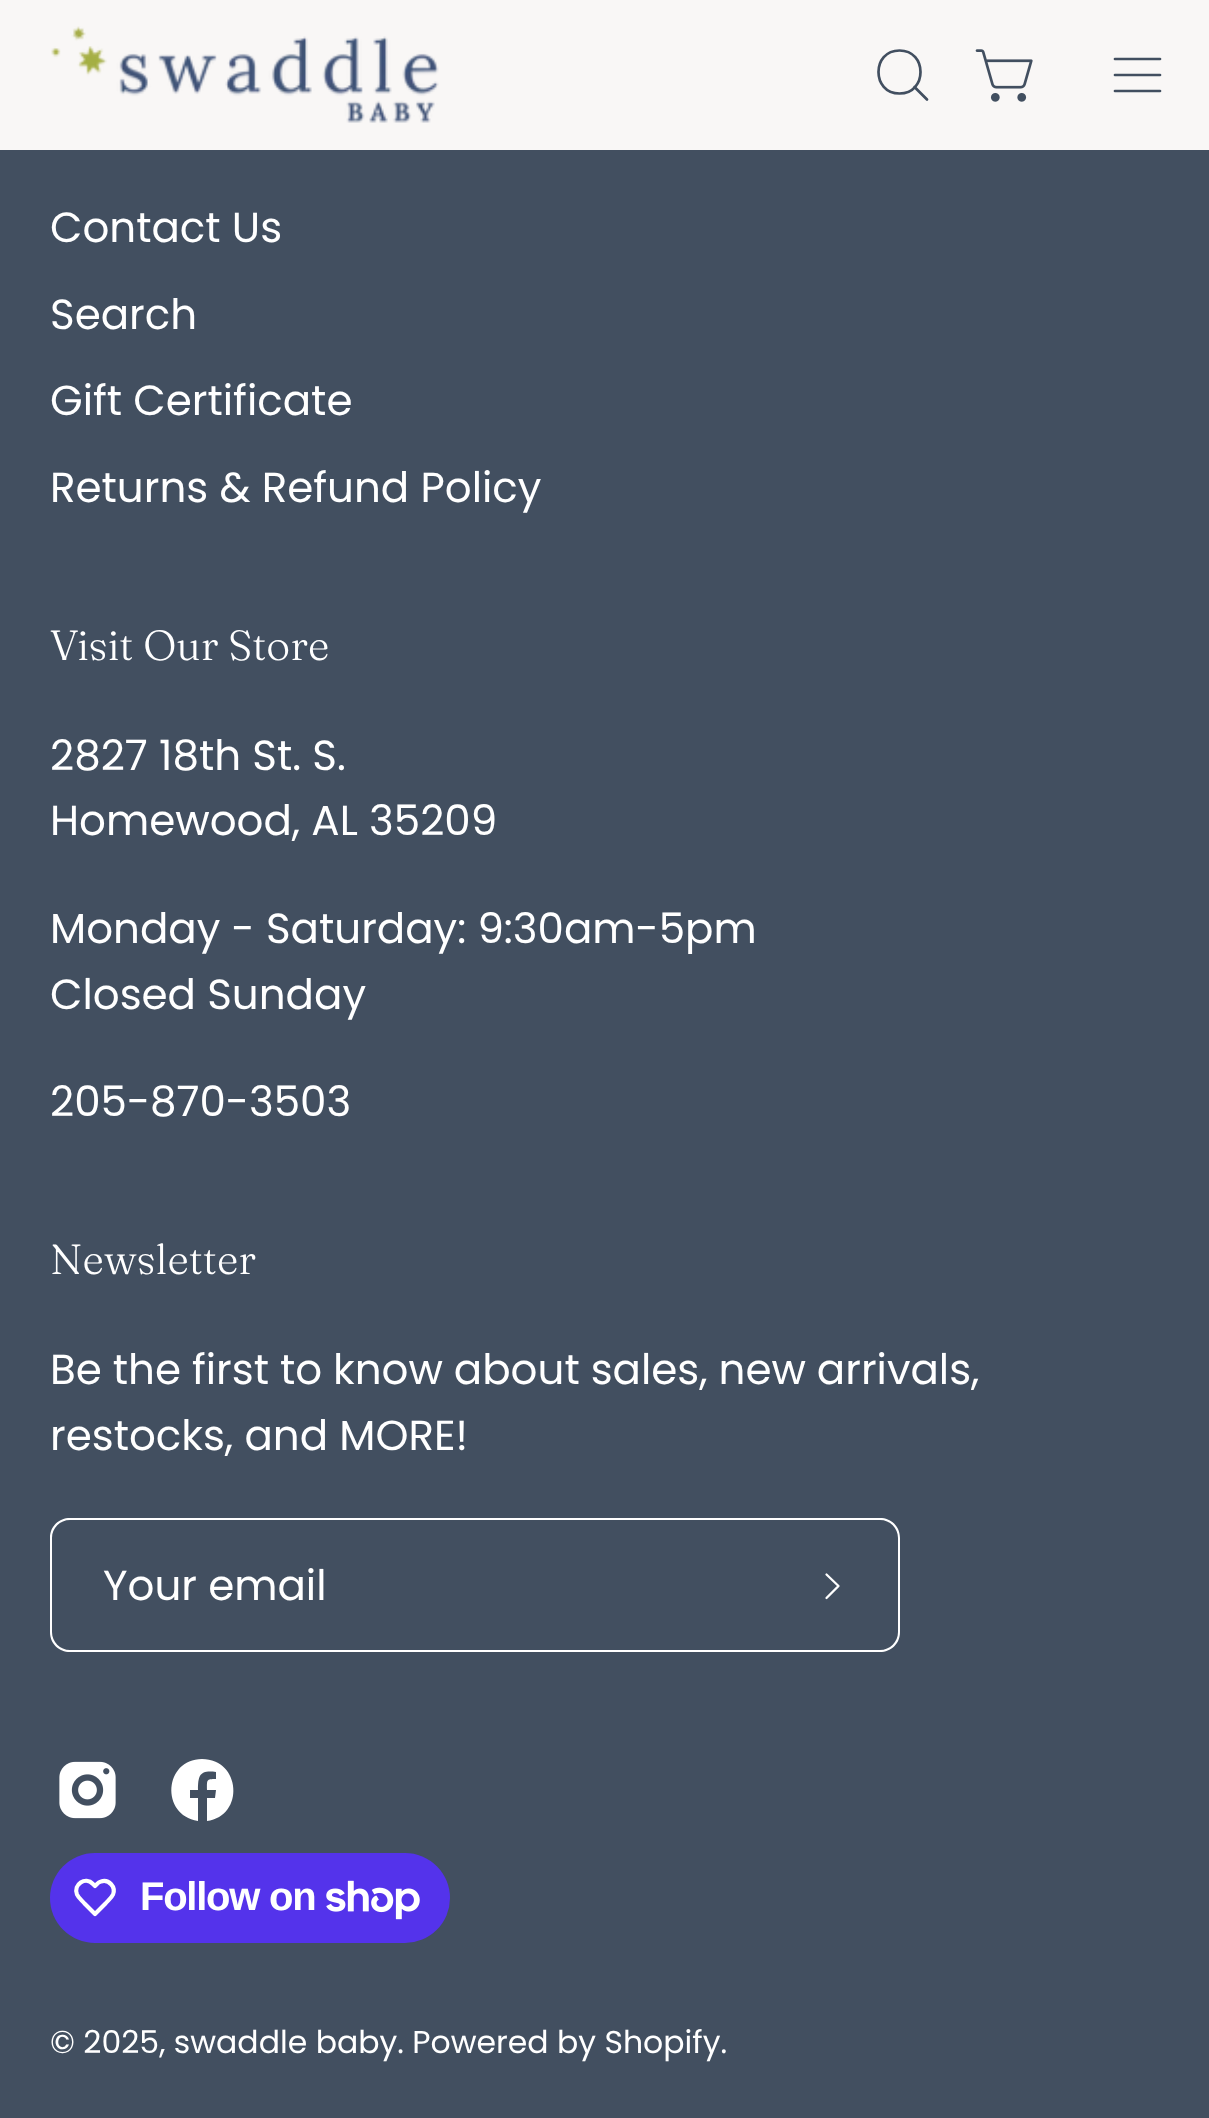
<!DOCTYPE html>
<meta charset="utf-8">
<style>body { margin: 0 } canvas { display: block }</style>
<canvas id="canvas" width="1209" height="2118"></canvas>
<img id="img1" src="img_01.png" hidden>
<img id="img2" src="img_02.png" hidden>
<img id="img3" src="img_03.png" hidden>
<img id="img4" src="img_04.png" hidden>
<script>
window.onload = function () {
	const canvas = document.getElementById("canvas");
	const ctx = canvas.getContext("2d");
	ctx.miterLimit = 4;
	ctx.fontKerning = "normal";
	function txt(s, x, y) {
		ctx.fillText(s, x, y);
	}
	function fill(x, y, w, h) {
		ctx.fillRect(x, y, w, h);
	}
	function round(x, y, w, h, r) {
		ctx.beginPath();
		ctx.roundRect(x, y, w, h, r);
		ctx.fill();
	}
	function img(id, x, y, w, h) {
		ctx.drawImage(document.getElementById(id), x, y, w, h);
	}

	ctx.fillStyle = "#424F60";
	fill(0, 0, 1209, 2118);
	ctx.fillStyle = "#F9F7F6";
	fill(0, 0, 1209, 150);
	img("img1", 51, 26, 388, 97);
	ctx.beginPath();
	ctx.moveTo(899.5, 93.5);
	ctx.bezierCurveTo(927.5, 93.5, 927.5, 50.5, 899.5, 50.5);
	ctx.bezierCurveTo(871.5, 50.5, 871.5, 93.5, 899.5, 93.5);
	ctx.closePath();
	ctx.moveTo(914.5, 87);
	ctx.lineTo(927, 99.5);
	ctx.strokeStyle = "#424F60";
	ctx.lineWidth = 2.7;
	ctx.lineCap = "round";
	ctx.lineJoin = "round";
	ctx.stroke();
	img("img2", 975, 49, 58, 53);
	ctx.beginPath();
	ctx.moveTo(1115, 75);
	ctx.lineTo(1160, 75);
	ctx.moveTo(1115, 59);
	ctx.lineTo(1160, 59);
	ctx.moveTo(1115, 91);
	ctx.lineTo(1160, 91);
	ctx.stroke();
	ctx.fillStyle = "#FFFFFF";
	ctx.beginPath();
	ctx.moveTo(70, 1518);
	ctx.lineTo(765, 1518);
	ctx.lineTo(765, 1652);
	ctx.lineTo(70, 1652);
	ctx.bezierCurveTo(59, 1652, 50, 1644, 50, 1632);
	ctx.lineTo(50, 1538);
	ctx.bezierCurveTo(50, 1526, 59, 1518, 70, 1518);
	ctx.closePath();
	ctx.moveTo(70, 1520);
	ctx.lineTo(765, 1520);
	ctx.lineTo(765, 1650);
	ctx.lineTo(70, 1650);
	ctx.bezierCurveTo(60, 1650, 52, 1642, 52, 1632);
	ctx.lineTo(52, 1538);
	ctx.bezierCurveTo(52, 1528, 60, 1520, 70, 1520);
	ctx.closePath();
	ctx.fill("evenodd");
	ctx.beginPath();
	ctx.moveTo(765, 1518);
	ctx.lineTo(880, 1518);
	ctx.bezierCurveTo(891, 1518, 900, 1526, 900, 1538);
	ctx.lineTo(900, 1632);
	ctx.bezierCurveTo(900, 1644, 891, 1652, 880, 1652);
	ctx.lineTo(765, 1652);
	ctx.closePath();
	ctx.moveTo(765, 1520);
	ctx.lineTo(880, 1520);
	ctx.bezierCurveTo(890, 1520, 898, 1528, 898, 1538);
	ctx.lineTo(898, 1632);
	ctx.bezierCurveTo(898, 1642, 890, 1650, 880, 1650);
	ctx.lineTo(765, 1650);
	ctx.closePath();
	ctx.fill("evenodd");
	ctx.beginPath();
	ctx.moveTo(826.5, 1574.5);
	ctx.lineTo(838.5, 1586);
	ctx.lineTo(826.5, 1598);
	ctx.strokeStyle = "#FFFFFF";
	ctx.lineWidth = 2.3;
	ctx.stroke();
	img("img3", 59, 1761, 57, 58);
	ctx.beginPath();
	ctx.moveTo(202, 1759);
	ctx.bezierCurveTo(164, 1759, 160, 1815, 198, 1821);
	ctx.lineTo(198, 1798);
	ctx.lineTo(190, 1798);
	ctx.lineTo(190, 1790);
	ctx.lineTo(198, 1790);
	ctx.bezierCurveTo(198, 1775, 200, 1770, 216, 1772);
	ctx.lineTo(216, 1779);
	ctx.bezierCurveTo(206, 1779, 207, 1780, 207, 1790);
	ctx.lineTo(216, 1790);
	ctx.lineTo(215, 1798);
	ctx.lineTo(207, 1798);
	ctx.lineTo(207, 1821);
	ctx.bezierCurveTo(245, 1816, 241, 1759, 202, 1759);
	ctx.closePath();
	ctx.fill();
	ctx.fillStyle = "#5433EB";
	round(50, 1853, 400, 90, 45);
	ctx.beginPath();
	ctx.moveTo(93, 1884);
	ctx.lineTo(95, 1886);
	ctx.bezierCurveTo(97, 1884, 98.5, 1882, 101, 1881.5);
	ctx.bezierCurveTo(109, 1879, 116, 1887, 113, 1894.5);
	ctx.bezierCurveTo(111.5, 1898, 108, 1900.5, 105.5, 1903.5);
	ctx.lineTo(95, 1914);
	ctx.lineTo(84.5, 1903.5);
	ctx.bezierCurveTo(82, 1900.5, 78.5, 1898, 77, 1894.5);
	ctx.bezierCurveTo(73, 1884.5, 85.5, 1876, 93, 1884);
	ctx.closePath();
	ctx.lineWidth = 4.2;
	ctx.lineCap = "butt";
	ctx.stroke();
	img("img4", 326, 1880, 94, 40);
	ctx.font = "42px Poppins";
	ctx.fillStyle = "#FFFFFF";
	txt("Contact Us", 50, 242);
	txt("Search", 50, 329);
	txt("Gift Certificate", 50, 415);
	txt("Returns & Refund Policy", 50, 502);
	ctx.font = "300 42px Fraunces";
	txt("Visit Our Store", 50, 660);
	ctx.font = "42px Poppins";
	txt("2827 18th St. S.", 50, 770);
	txt("Homewood, AL 35209", 50, 835);
	txt("Monday - Saturday: 9:30am-5pm", 50, 943);
	txt("Closed Sunday", 50, 1009);
	txt("205-870-3503", 50, 1116);
	ctx.font = "300 42px Fraunces";
	txt("Newsletter", 50, 1274);
	ctx.wordSpacing = "-0.25px";
	ctx.font = "42px Poppins";
	txt("Be the first to know about sales, new arrivals,", 50, 1384);
	ctx.wordSpacing = "0px";
	txt("restocks, and MORE!", 50, 1450);
	txt("Your email", 103, 1600);
	ctx.letterSpacing = "-1.25px";
	ctx.font = "bold 40px Liberation Sans";
	txt("Follow on", 140, 1910);
	ctx.letterSpacing = "0px";
	ctx.font = "31.5px Poppins";
	txt("© 2025, swaddle baby. Powered by Shopify.", 50, 2053);
};
</script>
